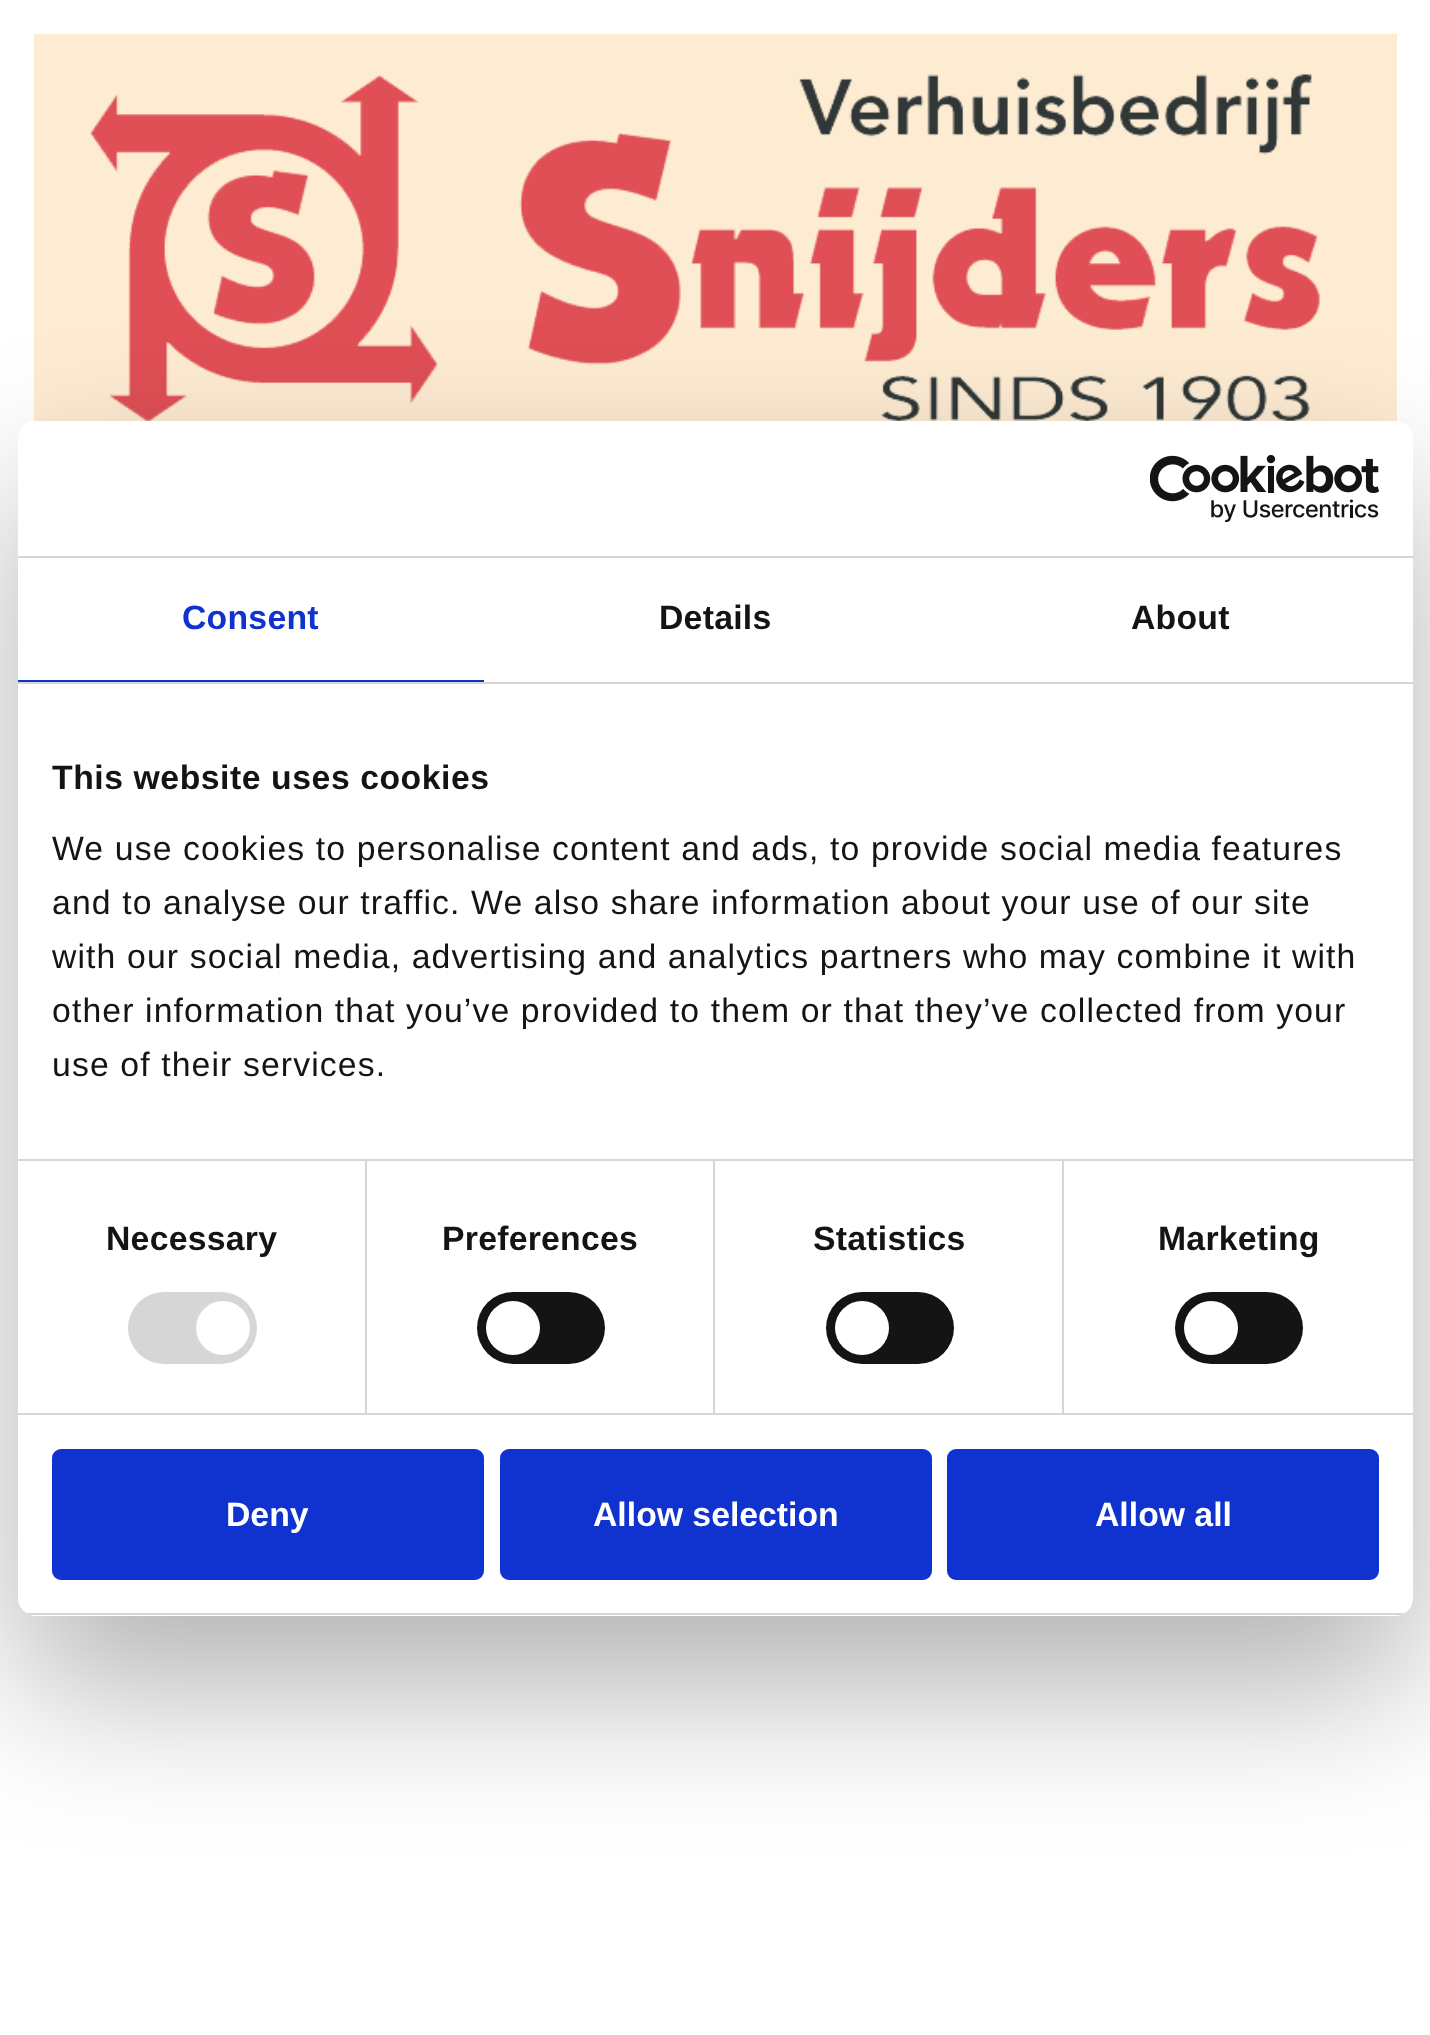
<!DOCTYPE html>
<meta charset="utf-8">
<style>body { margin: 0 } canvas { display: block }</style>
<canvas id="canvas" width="1430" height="2035"></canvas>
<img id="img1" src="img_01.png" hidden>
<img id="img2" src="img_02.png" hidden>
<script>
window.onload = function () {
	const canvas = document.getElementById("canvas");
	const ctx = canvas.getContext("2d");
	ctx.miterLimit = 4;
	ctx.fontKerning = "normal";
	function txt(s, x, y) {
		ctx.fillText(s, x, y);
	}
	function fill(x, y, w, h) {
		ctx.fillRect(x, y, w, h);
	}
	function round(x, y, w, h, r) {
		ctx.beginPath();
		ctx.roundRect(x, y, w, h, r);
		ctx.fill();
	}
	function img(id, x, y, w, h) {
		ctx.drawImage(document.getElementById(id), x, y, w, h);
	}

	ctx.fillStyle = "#FFFFFF";
	fill(0, 0, 1430, 2035);
	ctx.fillStyle = "#FDECD2";
	fill(34, 34, 1363, 388);
	img("img1", 90, 74, 1230, 347);
	ctx.fillStyle = "rgba(0, 0, 0, 0.3)";
	ctx.filter = "blur(76.5px)";
	ctx.beginPath();
	ctx.roundRect(18, 493, 1395, 1195, 18);
	ctx.fill();
	ctx.filter = "none";
	ctx.fillStyle = "#FFFFFF";
	round(18, 421, 1395, 1195, 18);
	ctx.fillStyle = "#D6D6D6";
	fill(18, 556, 1395, 2);
	img("img2", 1150, 455, 229, 67);
	fill(18, 682, 1395, 2);
	ctx.fillStyle = "#1032CF";
	fill(18, 680, 466, 2);
	ctx.fillStyle = "#D6D6D6";
	fill(18, 1159, 1395, 2);
	fill(18, 1413, 1395, 2);
	fill(365, 1161, 2, 252);
	round(128, 1292, 129, 72, 36);
	ctx.fillStyle = "#FFFFFF";
	ctx.beginPath();
	ctx.arc(223, 1328, 27, 0, Math.PI * 2);
	ctx.fill();
	ctx.fillStyle = "#D6D6D6";
	fill(713, 1161, 2, 252);
	ctx.fillStyle = "#141414";
	round(477, 1292, 128, 72, 36);
	ctx.fillStyle = "#FFFFFF";
	ctx.beginPath();
	ctx.arc(513, 1328, 27, 0, Math.PI * 2);
	ctx.fill();
	ctx.fillStyle = "#D6D6D6";
	fill(1062, 1161, 2, 252);
	ctx.fillStyle = "#141414";
	round(826, 1292, 128, 72, 36);
	ctx.fillStyle = "#FFFFFF";
	ctx.beginPath();
	ctx.arc(862, 1328, 27, 0, Math.PI * 2);
	ctx.fill();
	ctx.fillStyle = "#141414";
	round(1175, 1292, 128, 72, 36);
	ctx.fillStyle = "#FFFFFF";
	ctx.beginPath();
	ctx.arc(1211, 1328, 27, 0, Math.PI * 2);
	ctx.fill();
	ctx.save();
	ctx.beginPath();
	ctx.roundRect(18, 421, 1395, 1195, 18);
	ctx.clip();
	ctx.fillStyle = "#D6D6D6";
	fill(18, 1613, 1395, 2);
	ctx.restore();
	ctx.fillStyle = "#1032CF";
	ctx.beginPath();
	ctx.roundRect(54.5, 1451.5, 427, 126, 6.5);
	ctx.fill();
	ctx.strokeStyle = "#1032CF";
	ctx.lineWidth = 5;
	ctx.stroke();
	ctx.beginPath();
	ctx.roundRect(502.5, 1451.5, 427, 126, 6.5);
	ctx.fill();
	ctx.stroke();
	ctx.beginPath();
	ctx.roundRect(949.5, 1451.5, 427, 126, 6.5);
	ctx.fill();
	ctx.stroke();
	ctx.letterSpacing = "0.25px";
	ctx.font = "bold 33.75px Liberation Sans";
	txt("Consent", 182, 629);
	ctx.fillStyle = "#141414";
	txt("Details", 659, 629);
	txt("About", 1131, 629);
	ctx.letterSpacing = "0.55px";
	txt("This website uses cookies", 52, 789);
	ctx.letterSpacing = "1.12px";
	ctx.font = "33.75px Liberation Sans";
	txt("We use cookies to personalise content and ads, to provide social media features", 52, 860);
	txt("and to analyse our traffic. We also share information about your use of our site", 52, 914);
	txt("with our social media, advertising and analytics partners who may combine it with", 52, 968);
	txt("other information that you’ve provided to them or that they’ve collected from your", 52, 1022);
	txt("use of their services.", 52, 1076);
	ctx.letterSpacing = "0.25px";
	ctx.font = "bold 33.75px Liberation Sans";
	txt("Necessary", 106, 1250);
	txt("Preferences", 442, 1250);
	txt("Statistics", 813, 1250);
	txt("Marketing", 1158, 1250);
	ctx.letterSpacing = "0px";
	ctx.fillStyle = "#FFFFFF";
	txt("Deny", 226, 1526);
	txt("Allow selection", 593, 1526);
	txt("Allow all", 1095, 1526);
};
</script>
